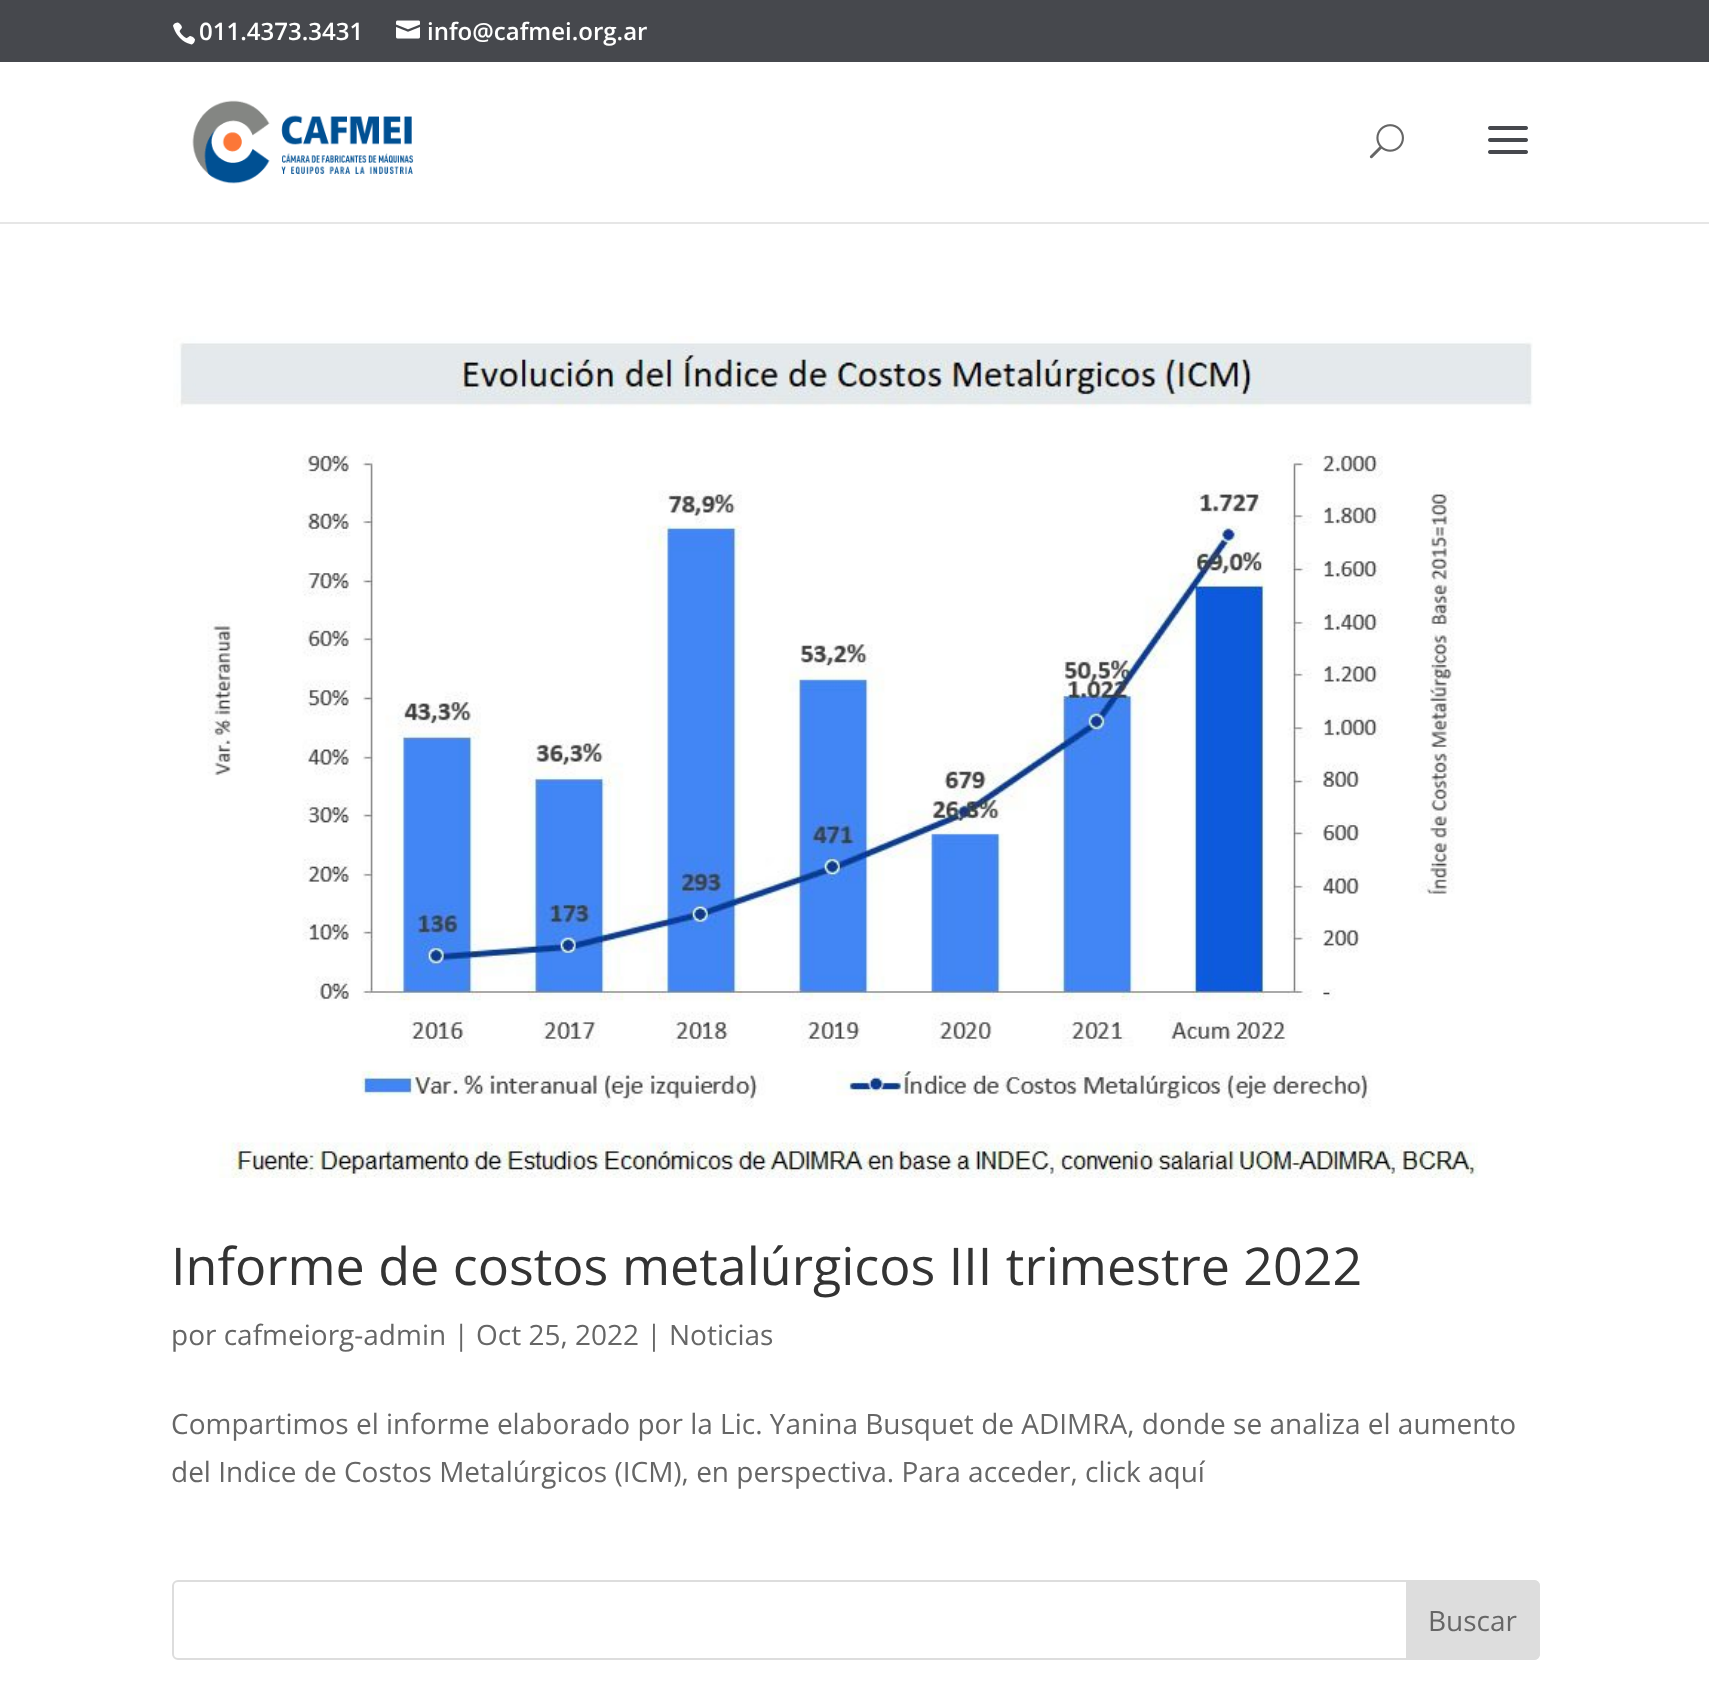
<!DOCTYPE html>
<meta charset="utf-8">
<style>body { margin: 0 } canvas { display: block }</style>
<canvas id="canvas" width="1709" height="1705"></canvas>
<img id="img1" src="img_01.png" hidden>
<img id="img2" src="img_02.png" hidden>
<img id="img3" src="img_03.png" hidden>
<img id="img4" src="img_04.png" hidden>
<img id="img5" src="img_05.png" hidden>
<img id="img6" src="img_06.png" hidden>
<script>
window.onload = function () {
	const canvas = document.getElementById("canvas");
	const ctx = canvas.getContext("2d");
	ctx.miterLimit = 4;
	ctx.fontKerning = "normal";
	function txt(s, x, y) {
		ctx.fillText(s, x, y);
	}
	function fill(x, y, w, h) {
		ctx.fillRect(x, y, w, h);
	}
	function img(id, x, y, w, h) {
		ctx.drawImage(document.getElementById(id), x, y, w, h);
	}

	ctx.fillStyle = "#FFFFFF";
	fill(0, 0, 1709, 1705);
	ctx.fillStyle = "#46484D";
	fill(0, 0, 1709, 62);
	img("img1", 173, 22, 22, 23);
	img("img2", 396, 20, 24, 19);
	ctx.fillStyle = "#E6E6E6";
	fill(0, 222, 1709, 2);
	img("img3", 192, 100, 222, 84);
	img("img4", 1369, 124, 35, 35);
	img("img5", 1488, 126, 40, 28);
	img("img6", 173, 336, 1360, 842);
	ctx.beginPath();
	ctx.roundRect(173, 1581, 1366, 78, 5);
	ctx.strokeStyle = "#DDDDDD";
	ctx.lineWidth = 2;
	ctx.stroke();
	ctx.fillStyle = "#DDDDDD";
	ctx.beginPath();
	ctx.roundRect(1407, 1581, 132, 78, [0, 5, 5, 0]);
	ctx.fill();
	ctx.stroke();
	ctx.font = "600 24px Open Sans";
	ctx.fillStyle = "#FFFFFF";
	txt("011.4373.3431", 199, 40);
	txt("info@cafmei.org.ar", 427, 40);
	ctx.font = "52px Open Sans";
	ctx.fillStyle = "#333333";
	txt("Informe de costos metalúrgicos III trimestre 2022", 171, 1285);
	ctx.font = "28px Open Sans";
	ctx.fillStyle = "#666666";
	txt("por cafmeiorg-admin | Oct 25, 2022 | Noticias", 171, 1345);
	txt("Compartimos el informe elaborado por la Lic. Yanina Busquet de ADIMRA, donde se analiza el aumento", 171, 1434);
	txt("del Indice de Costos Metalúrgicos (ICM), en perspectiva. Para acceder, click aquí", 171, 1482);
	txt("Buscar", 1428, 1631);
};
</script>
